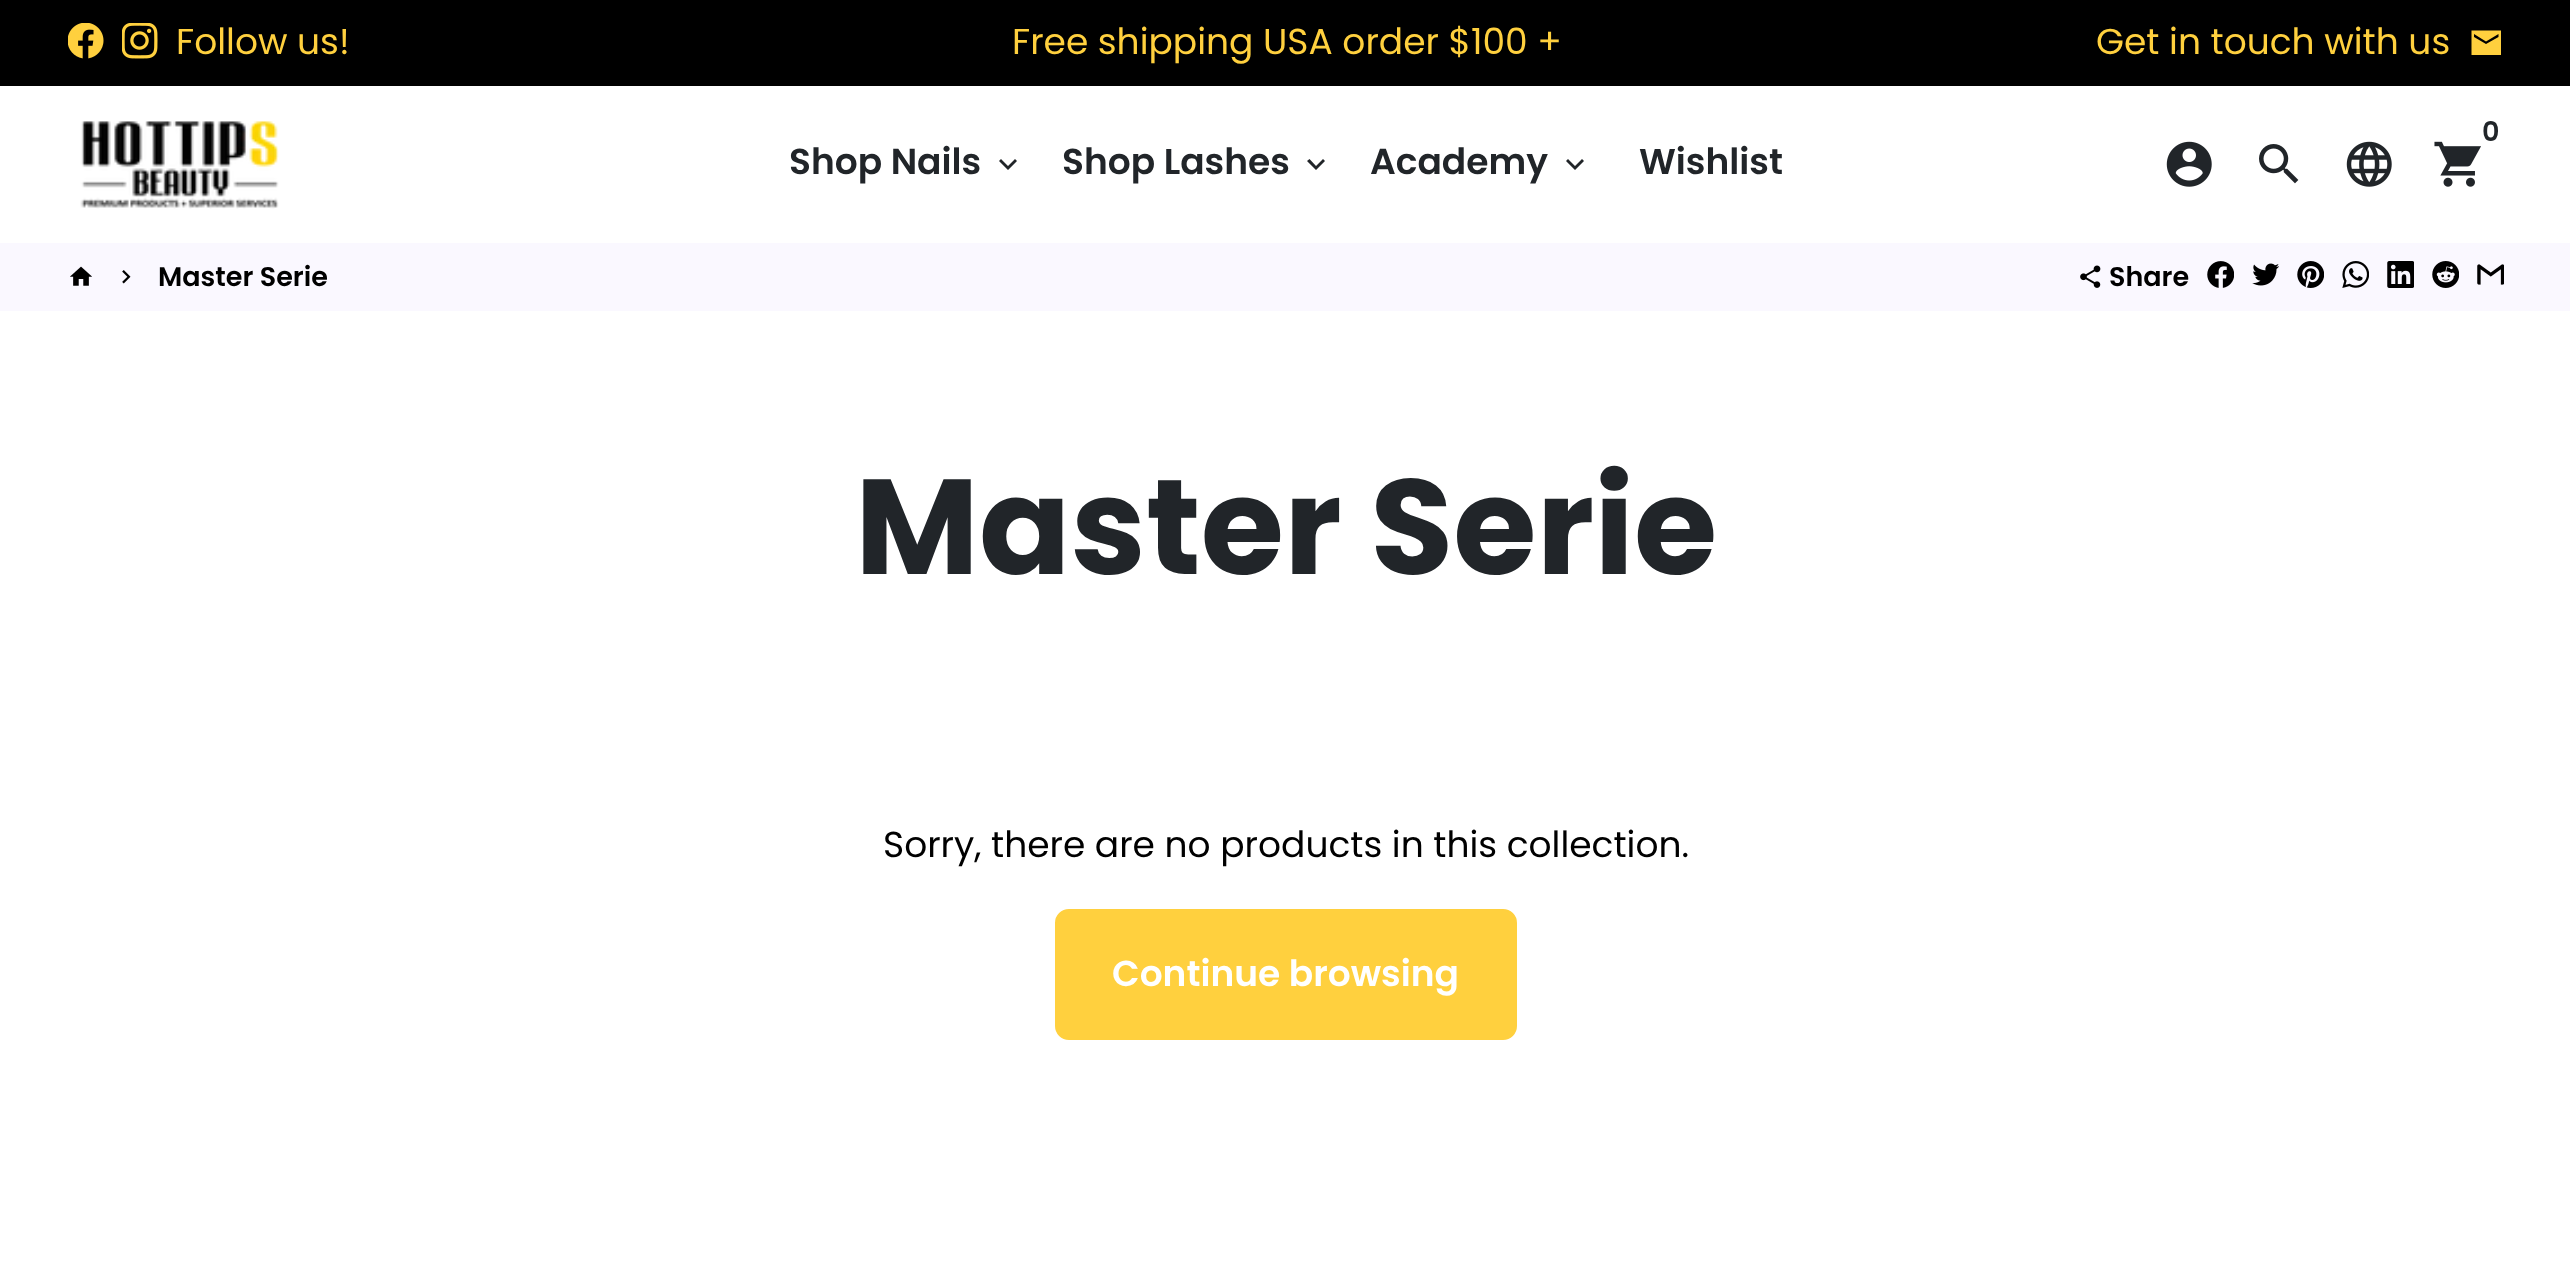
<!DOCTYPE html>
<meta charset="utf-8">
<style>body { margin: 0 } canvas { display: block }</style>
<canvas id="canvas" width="2570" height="1277"></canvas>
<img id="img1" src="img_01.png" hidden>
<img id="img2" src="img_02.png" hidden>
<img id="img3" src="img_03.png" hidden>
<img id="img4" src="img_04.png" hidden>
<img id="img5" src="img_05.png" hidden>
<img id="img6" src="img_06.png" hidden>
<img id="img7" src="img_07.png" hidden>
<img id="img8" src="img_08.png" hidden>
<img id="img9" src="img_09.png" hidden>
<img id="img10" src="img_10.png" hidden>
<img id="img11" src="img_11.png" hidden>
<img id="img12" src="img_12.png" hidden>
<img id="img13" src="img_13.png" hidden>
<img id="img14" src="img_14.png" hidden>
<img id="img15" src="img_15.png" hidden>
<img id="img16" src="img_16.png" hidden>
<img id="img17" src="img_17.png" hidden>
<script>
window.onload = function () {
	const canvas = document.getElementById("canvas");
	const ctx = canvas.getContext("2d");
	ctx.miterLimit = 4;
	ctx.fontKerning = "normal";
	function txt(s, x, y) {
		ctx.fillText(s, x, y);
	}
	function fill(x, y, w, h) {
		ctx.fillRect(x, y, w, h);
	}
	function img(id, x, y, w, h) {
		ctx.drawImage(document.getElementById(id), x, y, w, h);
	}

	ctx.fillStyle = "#FFFFFF";
	fill(0, 0, 2570, 1277);
	ctx.fillStyle = "#000000";
	fill(0, 0, 2570, 86);
	img("img1", 68, 23, 36, 36);
	img("img2", 122, 23, 36, 36);
	ctx.fillStyle = "#FFD03E";
	ctx.beginPath();
	ctx.moveTo(2501, 30.5);
	ctx.lineTo(2471.5, 30.5);
	ctx.lineTo(2471.5, 55);
	ctx.lineTo(2501, 55);
	ctx.closePath();
	ctx.moveTo(2498.5, 37);
	ctx.lineTo(2486, 44);
	ctx.lineTo(2474, 37);
	ctx.lineTo(2474, 34);
	ctx.lineTo(2486, 41.5);
	ctx.lineTo(2498.5, 34);
	ctx.closePath();
	ctx.fill();
	img("img3", 80, 121, 199, 88);
	ctx.fillStyle = "#212529";
	ctx.beginPath();
	ctx.moveTo(1001, 159);
	ctx.lineTo(1008, 166);
	ctx.lineTo(1015, 159);
	ctx.lineTo(1017, 161);
	ctx.lineTo(1008, 170);
	ctx.lineTo(999, 161);
	ctx.closePath();
	ctx.fill();
	ctx.beginPath();
	ctx.moveTo(1309.5, 159);
	ctx.lineTo(1316, 166);
	ctx.lineTo(1323, 159);
	ctx.lineTo(1325, 161);
	ctx.lineTo(1316, 170);
	ctx.lineTo(1307, 161);
	ctx.closePath();
	ctx.fill();
	ctx.beginPath();
	ctx.moveTo(1568, 159);
	ctx.lineTo(1575, 166);
	ctx.lineTo(1582, 159);
	ctx.lineTo(1584, 161);
	ctx.lineTo(1575, 170);
	ctx.lineTo(1566, 161);
	ctx.closePath();
	ctx.fill();
	img("img4", 2434, 141, 47, 46);
	img("img5", 2166, 141, 46, 46);
	img("img6", 2259, 144, 40, 40);
	img("img7", 2346, 141, 46, 46);
	ctx.fillStyle = "#FAF8FF";
	fill(0, 243, 2570, 68);
	img("img8", 70, 266, 22, 20);
	img("img9", 122, 270, 9, 14);
	img("img10", 2080, 265, 21, 23);
	img("img11", 2207, 261, 27, 27);
	img("img12", 2252, 263, 27, 23);
	img("img13", 2297, 261, 27, 27);
	img("img14", 2342, 261, 27, 27);
	img("img15", 2387, 261, 27, 27);
	img("img16", 2432, 261, 27, 27);
	img("img17", 2477, 264, 27, 21);
	ctx.fillStyle = "#FFD03E";
	ctx.beginPath();
	ctx.roundRect(1056, 910, 460, 129, 13);
	ctx.fill();
	ctx.strokeStyle = "#FFD03E";
	ctx.lineWidth = 2;
	ctx.stroke();
	ctx.font = "36px Poppins";
	txt("Follow us!", 176, 54);
	txt("Free shipping USA order $100 +", 1012, 54);
	txt("Get in touch with us", 2096, 54);
	ctx.font = "600 36px Poppins";
	ctx.fillStyle = "#212529";
	txt("Shop Nails", 789, 174);
	txt("Shop Lashes", 1062, 174);
	txt("Academy", 1370, 174);
	txt("Wishlist", 1639, 174);
	ctx.font = "600 27px Poppins";
	txt("0", 2482, 141);
	ctx.fillStyle = "#000000";
	txt("Master Serie", 158, 286);
	txt("Share", 2109, 286);
	ctx.font = "bold 135px Poppins";
	ctx.fillStyle = "#212529";
	txt("Master Serie", 855, 574);
	ctx.font = "36px Poppins";
	ctx.fillStyle = "#000000";
	txt("Sorry, there are no products in this collection.", 883, 857);
	ctx.font = "600 36px Poppins";
	ctx.fillStyle = "#FFFFFF";
	txt("Continue browsing", 1112, 986);
};
</script>
